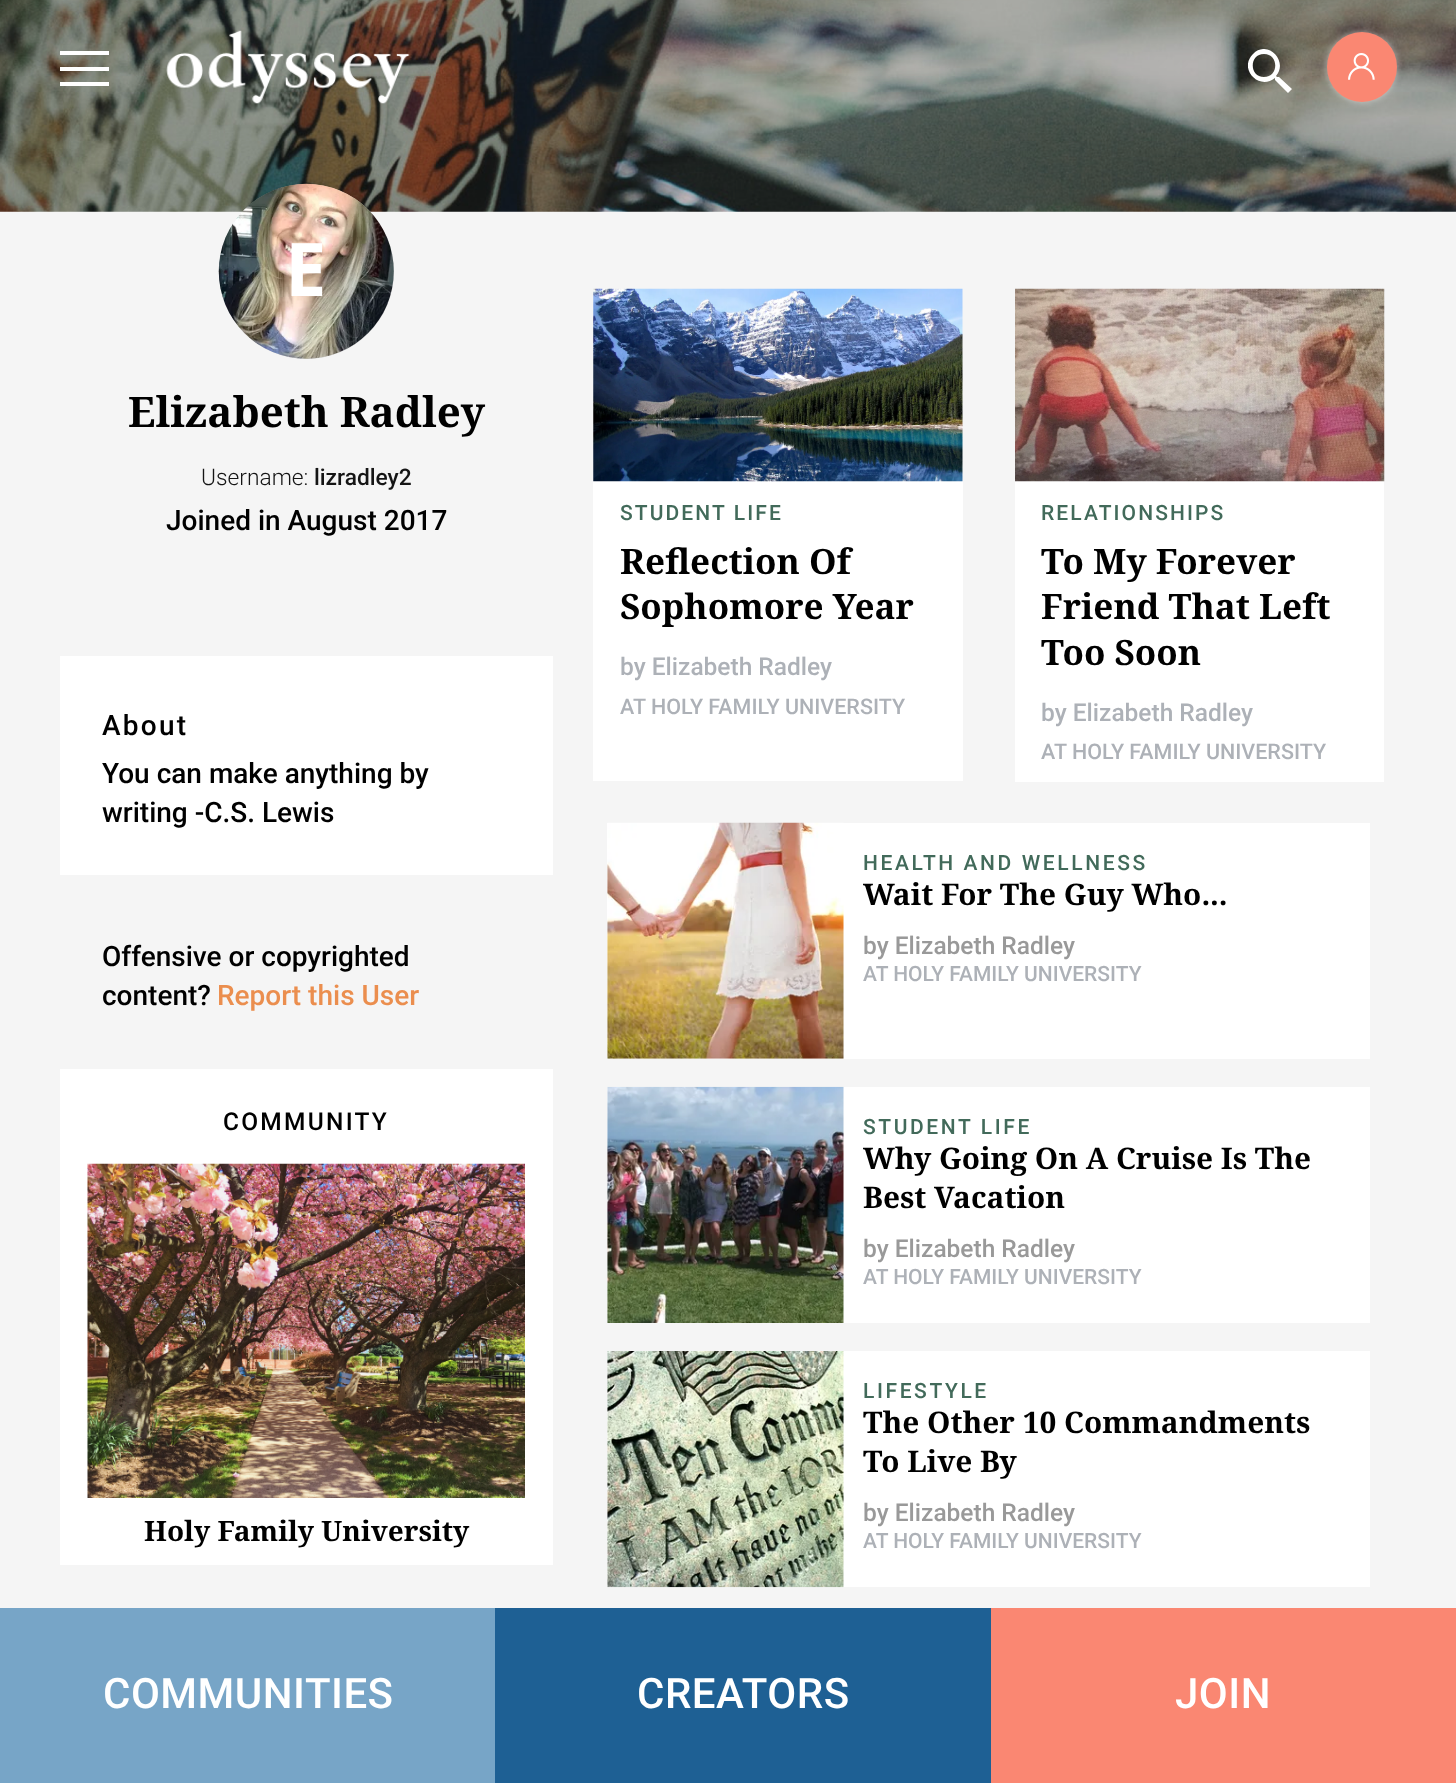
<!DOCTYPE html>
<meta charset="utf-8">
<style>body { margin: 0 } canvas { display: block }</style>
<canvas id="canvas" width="1456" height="1783"></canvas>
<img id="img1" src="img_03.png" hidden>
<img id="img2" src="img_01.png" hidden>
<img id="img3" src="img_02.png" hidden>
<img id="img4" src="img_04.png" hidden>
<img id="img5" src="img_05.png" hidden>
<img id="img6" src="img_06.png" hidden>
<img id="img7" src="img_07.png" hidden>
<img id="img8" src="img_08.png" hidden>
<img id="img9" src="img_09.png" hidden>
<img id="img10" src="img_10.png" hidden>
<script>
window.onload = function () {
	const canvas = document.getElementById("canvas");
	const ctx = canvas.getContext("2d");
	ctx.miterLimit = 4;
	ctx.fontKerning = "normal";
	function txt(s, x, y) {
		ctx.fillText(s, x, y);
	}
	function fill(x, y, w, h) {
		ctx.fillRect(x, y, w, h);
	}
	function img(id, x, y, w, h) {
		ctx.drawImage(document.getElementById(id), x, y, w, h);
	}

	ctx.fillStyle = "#F5F5F5";
	fill(0, 0, 1456, 1783);
	img("img1", 0, 0, 1456, 212);
	ctx.fillStyle = "#FFFFFF";
	fill(60, 51, 49, 4);
	fill(60, 67, 49, 4);
	fill(60, 82, 49, 4);
	img("img2", 166, 30, 244, 74);
	ctx.save();
	ctx.beginPath();
	ctx.rect(1248, 49, 44, 44);
	ctx.clip();
	ctx.beginPath();
	ctx.moveTo(1279, 77);
	ctx.lineTo(1277, 77);
	ctx.lineTo(1276, 76);
	ctx.bezierCurveTo(1289, 61, 1267, 39, 1253, 54);
	ctx.bezierCurveTo(1238, 69, 1259, 91, 1275, 78);
	ctx.lineTo(1275, 80);
	ctx.lineTo(1288, 93);
	ctx.lineTo(1292, 89);
	ctx.closePath();
	ctx.moveTo(1264, 77);
	ctx.bezierCurveTo(1249, 77, 1249, 54, 1264, 54);
	ctx.bezierCurveTo(1279, 54, 1279, 77, 1264, 77);
	ctx.closePath();
	ctx.fill("evenodd");
	ctx.restore();
	ctx.fillStyle = "rgba(255, 255, 255, 0.5)";
	ctx.filter = "blur(3.5px)";
	ctx.beginPath();
	ctx.roundRect(1327, 32, 70, 70, 35);
	ctx.fill();
	ctx.filter = "none";
	ctx.fillStyle = "#FA8772";
	ctx.beginPath();
	ctx.arc(1362, 67, 35, 0, Math.PI * 2);
	ctx.fill();
	img("img3", 1348, 53, 27, 27);
	ctx.fillStyle = "#CFCFCF";
	ctx.beginPath();
	ctx.arc(306.5, 271.5, 87.5, 0, Math.PI * 2);
	ctx.fill();
	img("img4", 218, 183, 176, 176);
	ctx.fillStyle = "#FFFFFF";
	fill(60, 656, 493, 219);
	fill(60, 1069, 493, 496);
	img("img5", 87, 1163, 438, 335);
	fill(593, 462, 370, 319);
	img("img6", 593, 288, 370, 194);
	fill(1015, 481, 369, 301);
	img("img7", 1015, 288, 370, 194);
	fill(607, 823, 763, 236);
	img("img8", 607, 822, 237, 237);
	fill(607, 1087, 763, 236);
	img("img9", 607, 1086, 237, 237);
	fill(607, 1351, 763, 236);
	img("img10", 607, 1351, 237, 237);
	ctx.fillStyle = "#77A5C7";
	fill(0, 1608, 495, 175);
	ctx.fillStyle = "#1E6094";
	fill(495, 1608, 496, 175);
	ctx.fillStyle = "#FA8772";
	fill(991, 1608, 465, 175);
	ctx.font = "bold 74px Noto Sans";
	ctx.fillStyle = "#FFFFFF";
	txt("E", 285, 296);
	ctx.font = "bold 42px Noto Serif";
	ctx.fillStyle = "#000000";
	txt("Elizabeth Radley", 128, 427);
	ctx.font = "300 22.75px Roboto";
	ctx.fillStyle = "#151515";
	txt("Username:", 201, 485);
	ctx.font = "500 22.75px Roboto";
	txt("lizradley2", 314, 485);
	ctx.font = "500 28px Roboto";
	ctx.fillStyle = "#000000";
	txt("Joined in August 2017", 166, 530);
	ctx.letterSpacing = "2.25px";
	txt("About", 102, 735);
	ctx.letterSpacing = "0px";
	txt("You can make anything by", 102, 783);
	txt("writing -C.S. Lewis", 102, 822);
	txt("Offensive or copyrighted", 102, 966);
	txt("content?", 102, 1005);
	ctx.fillStyle = "#EB8E4E";
	txt("Report this User", 217, 1005);
	ctx.letterSpacing = "2.25px";
	ctx.font = "500 24.5px Roboto";
	ctx.fillStyle = "#000000";
	txt("COMMUNITY", 223, 1130);
	ctx.letterSpacing = "0px";
	ctx.font = "bold 28px Noto Serif";
	txt("Holy Family University", 144, 1541);
	ctx.letterSpacing = "2.1px";
	ctx.font = "500 21px Roboto";
	ctx.fillStyle = "#426A5A";
	txt("STUDENT LIFE", 620, 520);
	ctx.letterSpacing = "0px";
	ctx.font = "bold 35px Noto Serif";
	ctx.fillStyle = "#000000";
	txt("Reflection Of", 620, 574);
	txt("Sophomore Year", 620, 619);
	ctx.font = "500 24.5px Roboto";
	ctx.fillStyle = "#ADB1B7";
	txt("by Elizabeth Radley", 620, 675);
	ctx.font = "500 21.5px Roboto";
	txt("AT HOLY FAMILY UNIVERSITY", 620, 714);
	ctx.letterSpacing = "2.1px";
	ctx.font = "500 21px Roboto";
	ctx.fillStyle = "#426A5A";
	txt("RELATIONSHIPS", 1041, 520);
	ctx.letterSpacing = "0px";
	ctx.font = "bold 35px Noto Serif";
	ctx.fillStyle = "#000000";
	txt("To My Forever", 1041, 574);
	txt("Friend That Left", 1041, 619);
	txt("Too Soon", 1041, 665);
	ctx.font = "500 24.5px Roboto";
	ctx.fillStyle = "#ADB1B7";
	txt("by Elizabeth Radley", 1041, 721);
	ctx.font = "500 21.5px Roboto";
	txt("AT HOLY FAMILY UNIVERSITY", 1041, 759);
	ctx.letterSpacing = "2.6px";
	ctx.font = "500 21px Roboto";
	ctx.fillStyle = "#426A5A";
	txt("HEALTH AND WELLNESS", 863, 870);
	ctx.save();
	ctx.beginPath();
	ctx.rect(863, 875, 479, 39);
	ctx.clip();
	ctx.letterSpacing = "0px";
	ctx.font = "bold 29.75px Noto Serif";
	ctx.fillStyle = "#000000";
	txt("Wait For The Guy Who...", 863, 905);
	ctx.restore();
	ctx.letterSpacing = "0px";
	ctx.font = "500 24.5px Roboto";
	ctx.fillStyle = "#999999";
	txt("by Elizabeth Radley", 863, 954);
	ctx.font = "500 21px Roboto";
	ctx.fillStyle = "#ADB1B7";
	txt("AT HOLY FAMILY UNIVERSITY", 863, 981);
	ctx.letterSpacing = "2.6px";
	ctx.fillStyle = "#426A5A";
	txt("STUDENT LIFE", 863, 1134);
	ctx.save();
	ctx.beginPath();
	ctx.rect(863, 1139, 479, 77);
	ctx.clip();
	ctx.letterSpacing = "0px";
	ctx.font = "bold 29.75px Noto Serif";
	ctx.fillStyle = "#000000";
	txt("Why Going On A Cruise Is The", 863, 1169);
	ctx.restore();
	ctx.letterSpacing = "0px";
	ctx.font = "bold 29.75px Noto Serif";
	ctx.fillStyle = "#000000";
	txt("Best Vacation", 863, 1208);
	ctx.font = "500 24.5px Roboto";
	ctx.fillStyle = "#999999";
	txt("by Elizabeth Radley", 863, 1257);
	ctx.font = "500 21px Roboto";
	ctx.fillStyle = "#ADB1B7";
	txt("AT HOLY FAMILY UNIVERSITY", 863, 1284);
	ctx.letterSpacing = "2.6px";
	ctx.fillStyle = "#426A5A";
	txt("LIFESTYLE", 863, 1398);
	ctx.letterSpacing = "0px";
	ctx.font = "bold 29.75px Noto Serif";
	ctx.fillStyle = "#000000";
	txt("The Other 10 Commandments", 863, 1433);
	txt("To Live By", 863, 1472);
	ctx.font = "500 24.5px Roboto";
	ctx.fillStyle = "#999999";
	txt("by Elizabeth Radley", 863, 1521);
	ctx.font = "500 21px Roboto";
	ctx.fillStyle = "#ADB1B7";
	txt("AT HOLY FAMILY UNIVERSITY", 863, 1548);
	ctx.letterSpacing = "0.5px";
	ctx.font = "500 42px Roboto";
	ctx.fillStyle = "#FFFFFF";
	txt("COMMUNITIES", 103, 1708);
	txt("CREATORS", 637, 1708);
	txt("JOIN", 1175, 1708);
};
</script>
